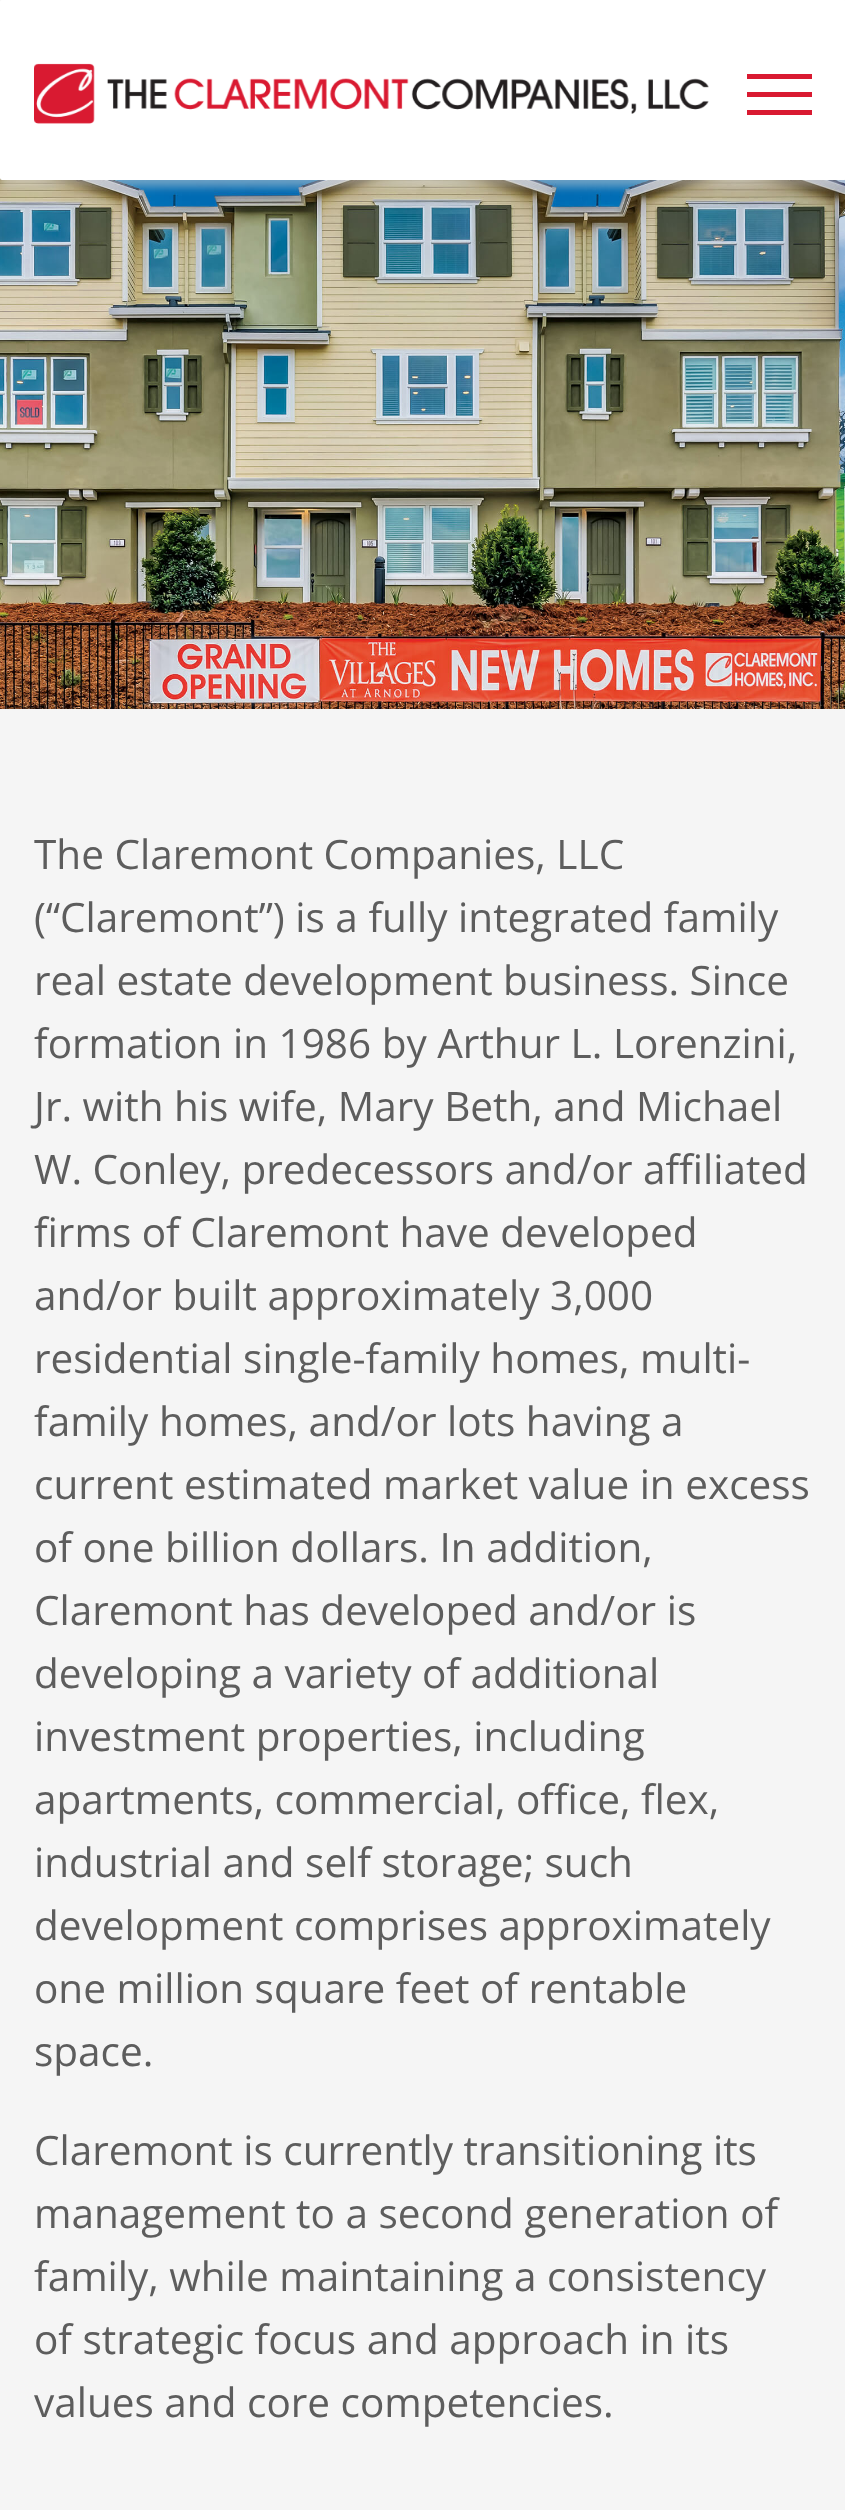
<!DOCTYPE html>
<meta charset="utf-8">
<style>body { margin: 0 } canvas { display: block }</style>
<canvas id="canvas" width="845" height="2510"></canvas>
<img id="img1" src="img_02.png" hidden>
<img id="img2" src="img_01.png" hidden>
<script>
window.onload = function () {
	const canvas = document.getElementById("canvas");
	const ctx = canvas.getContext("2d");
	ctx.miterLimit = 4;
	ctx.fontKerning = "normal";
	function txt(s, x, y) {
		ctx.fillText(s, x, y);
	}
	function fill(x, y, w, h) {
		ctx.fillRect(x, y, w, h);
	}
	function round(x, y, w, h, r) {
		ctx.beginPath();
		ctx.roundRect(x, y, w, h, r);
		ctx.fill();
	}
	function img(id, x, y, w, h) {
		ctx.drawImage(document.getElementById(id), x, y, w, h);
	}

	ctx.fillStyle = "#F5F5F5";
	fill(0, 0, 845, 2510);
	img("img1", 0, 178, 845, 531);
	ctx.fillStyle = "rgba(215, 215, 215, 0.5)";
	ctx.filter = "blur(4.5px)";
	ctx.beginPath();
	ctx.roundRect(0, 7, 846, 180, 2);
	ctx.fill();
	ctx.filter = "none";
	ctx.fillStyle = "#FFFFFF";
	round(0, 0, 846, 180, 2);
	img("img2", 34, 63, 675, 61);
	ctx.fillStyle = "#D91A31";
	fill(747, 74, 65, 5);
	fill(747, 92, 65, 5);
	fill(747, 110, 65, 5);
	ctx.font = "40.5px Open Sans";
	ctx.fillStyle = "#5D5D5D";
	txt("The Claremont Companies, LLC", 34, 869);
	txt("(“Claremont”) is a fully integrated family", 34, 932);
	txt("real estate development business. Since", 34, 995);
	txt("formation in 1986 by Arthur L. Lorenzini,", 34, 1058);
	txt("Jr. with his wife, Mary Beth, and Michael", 34, 1121);
	txt("W. Conley, predecessors and/or affiliated", 34, 1184);
	txt("firms of Claremont have developed", 34, 1247);
	txt("and/or built approximately 3,000", 34, 1310);
	txt("residential single-family homes, multi-", 34, 1373);
	txt("family homes, and/or lots having a", 34, 1436);
	txt("current estimated market value in excess", 34, 1499);
	txt("of one billion dollars. In addition,", 34, 1562);
	txt("Claremont has developed and/or is", 34, 1625);
	txt("developing a variety of additional", 34, 1688);
	txt("investment properties, including", 34, 1751);
	txt("apartments, commercial, office, flex,", 34, 1814);
	txt("industrial and self storage; such", 34, 1877);
	txt("development comprises approximately", 34, 1940);
	txt("one million square feet of rentable", 34, 2003);
	txt("space.", 34, 2066);
	txt("Claremont is currently transitioning its", 34, 2165);
	txt("management to a second generation of", 34, 2228);
	txt("family, while maintaining a consistency", 34, 2291);
	txt("of strategic focus and approach in its", 34, 2354);
	txt("values and core competencies.", 34, 2417);
};
</script>
